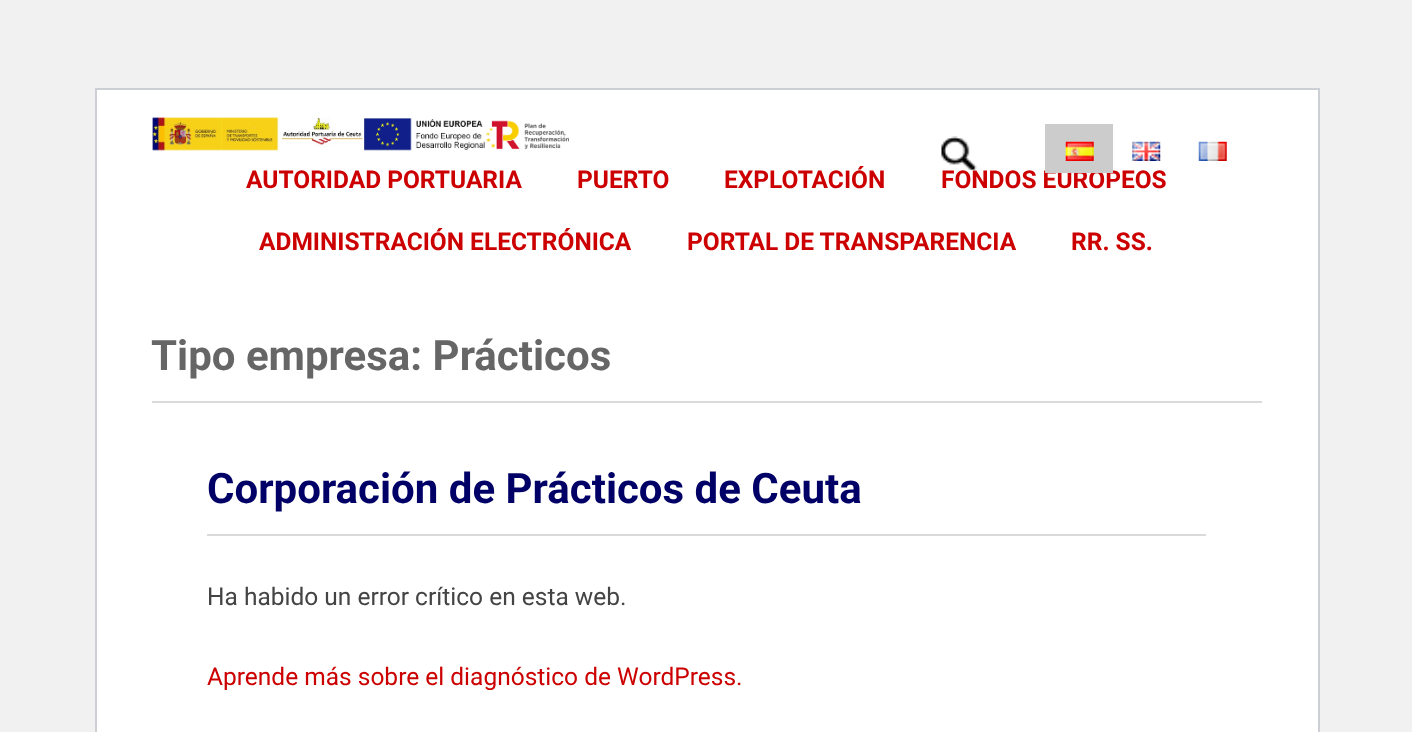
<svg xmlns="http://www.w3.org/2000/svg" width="1412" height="732">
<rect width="100%" height="100%" fill="#f1f1f1"/>
<rect x="96" y="89" width="1223" height="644" fill="#fff" stroke="#ccd0d4" stroke-width="2"/>
<image x="152" y="117" width="417" height="34" href="media/1.png"/>
<text x="941" y="188" style="font-family:Roboto;font-size:24.5px;font-weight:bold;fill:#c00">FONDOS EUROPEOS</text>
<image x="941" y="136" width="36" height="35" href="media/2.png"/>
<rect x="1045" y="124" width="68" height="49" fill="#ccc"/>
<image x="1065" y="141" width="29" height="20" href="media/3.png"/>
<image x="1132" y="141" width="29" height="20" href="media/4.png"/>
<image x="1198" y="141" width="29" height="20" href="media/5.png"/>
<text x="246" y="188" style="font-family:Roboto;font-size:24.5px;font-weight:bold;fill:#c00">AUTORIDAD PORTUARIA</text>
<text x="577" y="188" style="font-family:Roboto;font-size:24.5px;font-weight:bold;fill:#c00">PUERTO</text>
<text x="724" y="188" style="font-family:Roboto;font-size:24.5px;font-weight:bold;fill:#c00">EXPLOTACIÓN</text>
<text x="259" y="250" style="font-family:Roboto;font-size:24.5px;font-weight:bold;fill:#c00">ADMINISTRACIÓN ELECTRÓNICA</text>
<text x="687" y="250" style="font-family:Roboto;font-size:24.5px;font-weight:bold;fill:#c00">PORTAL DE TRANSPARENCIA</text>
<text x="1071" y="250" style="font-family:Roboto;font-size:24.5px;font-weight:bold;fill:#c00">RR. SS.</text>
<rect x="152" y="401" width="1110" height="2" fill="#dadada"/>
<text x="151" y="370" style="font-family:Roboto;font-size:42px;font-weight:bold;fill:#666">Tipo empresa: Prácticos</text>
<rect x="207" y="534" width="999" height="2" fill="#dadada"/>
<text x="207" y="503" style="font-family:Roboto;font-size:42px;font-weight:bold;fill:#006">Corporación de Prácticos de Ceuta</text>
<text x="207" y="605" style="font-family:Roboto;font-size:24.5px;fill:#444">Ha habido un error crítico en esta web.</text>
<text x="207" y="685" style="font-family:Roboto;font-size:24.5px;fill:#c00">Aprende más sobre el diagnóstico de WordPress.</text>
</svg>
